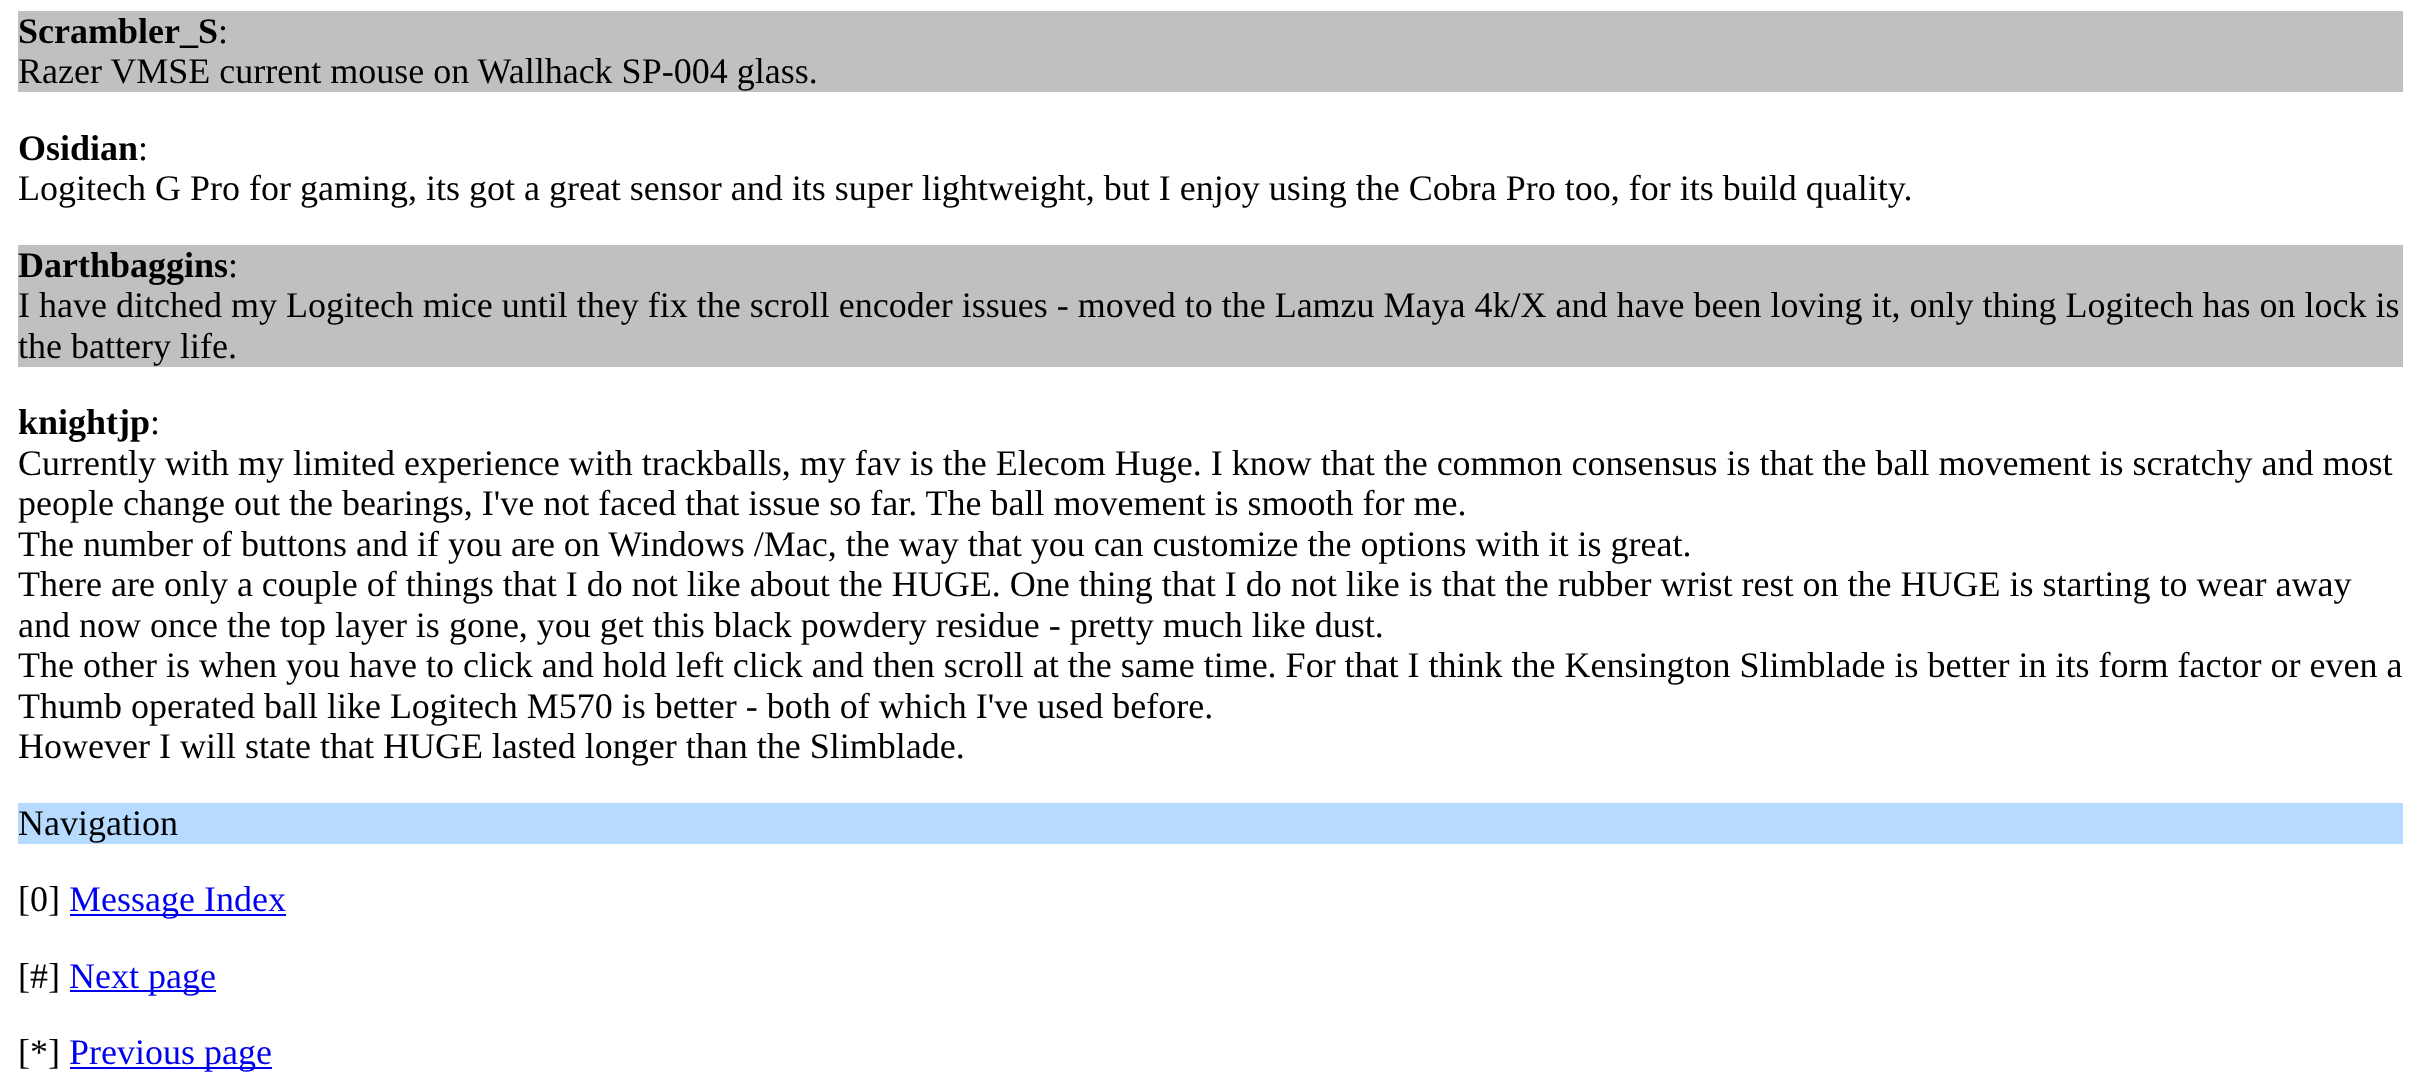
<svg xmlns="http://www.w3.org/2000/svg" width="2420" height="1072">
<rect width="100%" height="100%" fill="#fff"/>
<rect x="18" y="11" width="2385" height="81" fill="#c0c0c0"/>
<text x="18" y="43" style="font-family:Liberation Serif;font-size:36px;font-weight:bold;fill:#000">Scrambler_S</text>
<text x="218" y="43" style="font-family:Liberation Serif;font-size:36px;fill:#000">:</text>
<text x="18" y="83" style="font-family:Liberation Serif;font-size:36px;fill:#000">Razer VMSE current mouse on Wallhack SP-004 glass.</text>
<text x="18" y="160" style="font-family:Liberation Serif;font-size:36px;font-weight:bold;fill:#000">Osidian</text>
<text x="138" y="160" style="font-family:Liberation Serif;font-size:36px;fill:#000">:</text>
<text x="18" y="200" style="font-family:Liberation Serif;font-size:36px;fill:#000">Logitech G Pro for gaming, its got a great sensor and its super lightweight, but I enjoy using the Cobra Pro too, for its build quality.</text>
<rect x="18" y="245" width="2385" height="122" fill="#c0c0c0"/>
<text x="18" y="277" style="font-family:Liberation Serif;font-size:36px;font-weight:bold;fill:#000">Darthbaggins</text>
<text x="228" y="277" style="font-family:Liberation Serif;font-size:36px;fill:#000">:</text>
<text x="18" y="317" style="font-family:Liberation Serif;font-size:36px;fill:#000">I have ditched my Logitech mice until they fix the scroll encoder issues - moved to the Lamzu Maya 4k/X and have been loving it, only thing Logitech has on lock is</text>
<text x="18" y="358" style="font-family:Liberation Serif;font-size:36px;fill:#000">the battery life.</text>
<text x="18" y="434" style="font-family:Liberation Serif;font-size:36px;font-weight:bold;fill:#000">knightjp</text>
<text x="150" y="434" style="font-family:Liberation Serif;font-size:36px;fill:#000">:</text>
<text x="18" y="475" style="font-family:Liberation Serif;font-size:36px;fill:#000">Currently with my limited experience with trackballs, my fav is the Elecom Huge. I know that the common consensus is that the ball movement is scratchy and most</text>
<text x="18" y="515" style="font-family:Liberation Serif;font-size:36px;fill:#000">people change out the bearings, I've not faced that issue so far. The ball movement is smooth for me.</text>
<text x="18" y="556" style="font-family:Liberation Serif;font-size:36px;fill:#000">The number of buttons and if you are on Windows /Mac, the way that you can customize the options with it is great.</text>
<text x="18" y="596" style="font-family:Liberation Serif;font-size:36px;fill:#000">There are only a couple of things that I do not like about the HUGE. One thing that I do not like is that the rubber wrist rest on the HUGE is starting to wear away</text>
<text x="18" y="637" style="font-family:Liberation Serif;font-size:36px;fill:#000">and now once the top layer is gone, you get this black powdery residue - pretty much like dust.</text>
<text x="18" y="677" style="font-family:Liberation Serif;font-size:36px;fill:#000">The other is when you have to click and hold left click and then scroll at the same time. For that I think the Kensington Slimblade is better in its form factor or even a</text>
<text x="18" y="718" style="font-family:Liberation Serif;font-size:36px;fill:#000">Thumb operated ball like Logitech M570 is better - both of which I've used before.</text>
<text x="18" y="758" style="font-family:Liberation Serif;font-size:36px;fill:#000">However I will state that HUGE lasted longer than the Slimblade.</text>
<rect x="18" y="803" width="2385" height="41" fill="#b6dbff"/>
<text x="18" y="835" style="font-family:Liberation Serif;font-size:36px;fill:#000">Navigation</text>
<text x="18" y="911" style="font-family:Liberation Serif;font-size:36px;fill:#000">[0]</text>
<rect x="70" y="914" width="216" height="2" fill="#00e"/>
<text x="69" y="911" style="font-family:Liberation Serif;font-size:36px;fill:#00e">Message Index</text>
<text x="18" y="988" style="font-family:Liberation Serif;font-size:36px;fill:#000">[#]</text>
<rect x="70" y="990" width="146" height="2" fill="#00e"/>
<text x="69" y="988" style="font-family:Liberation Serif;font-size:36px;fill:#00e">Next page</text>
<text x="18" y="1064" style="font-family:Liberation Serif;font-size:36px;fill:#000">[*]</text>
<rect x="70" y="1067" width="202" height="2" fill="#00e"/>
<text x="69" y="1064" style="font-family:Liberation Serif;font-size:36px;fill:#00e">Previous page</text>
</svg>
